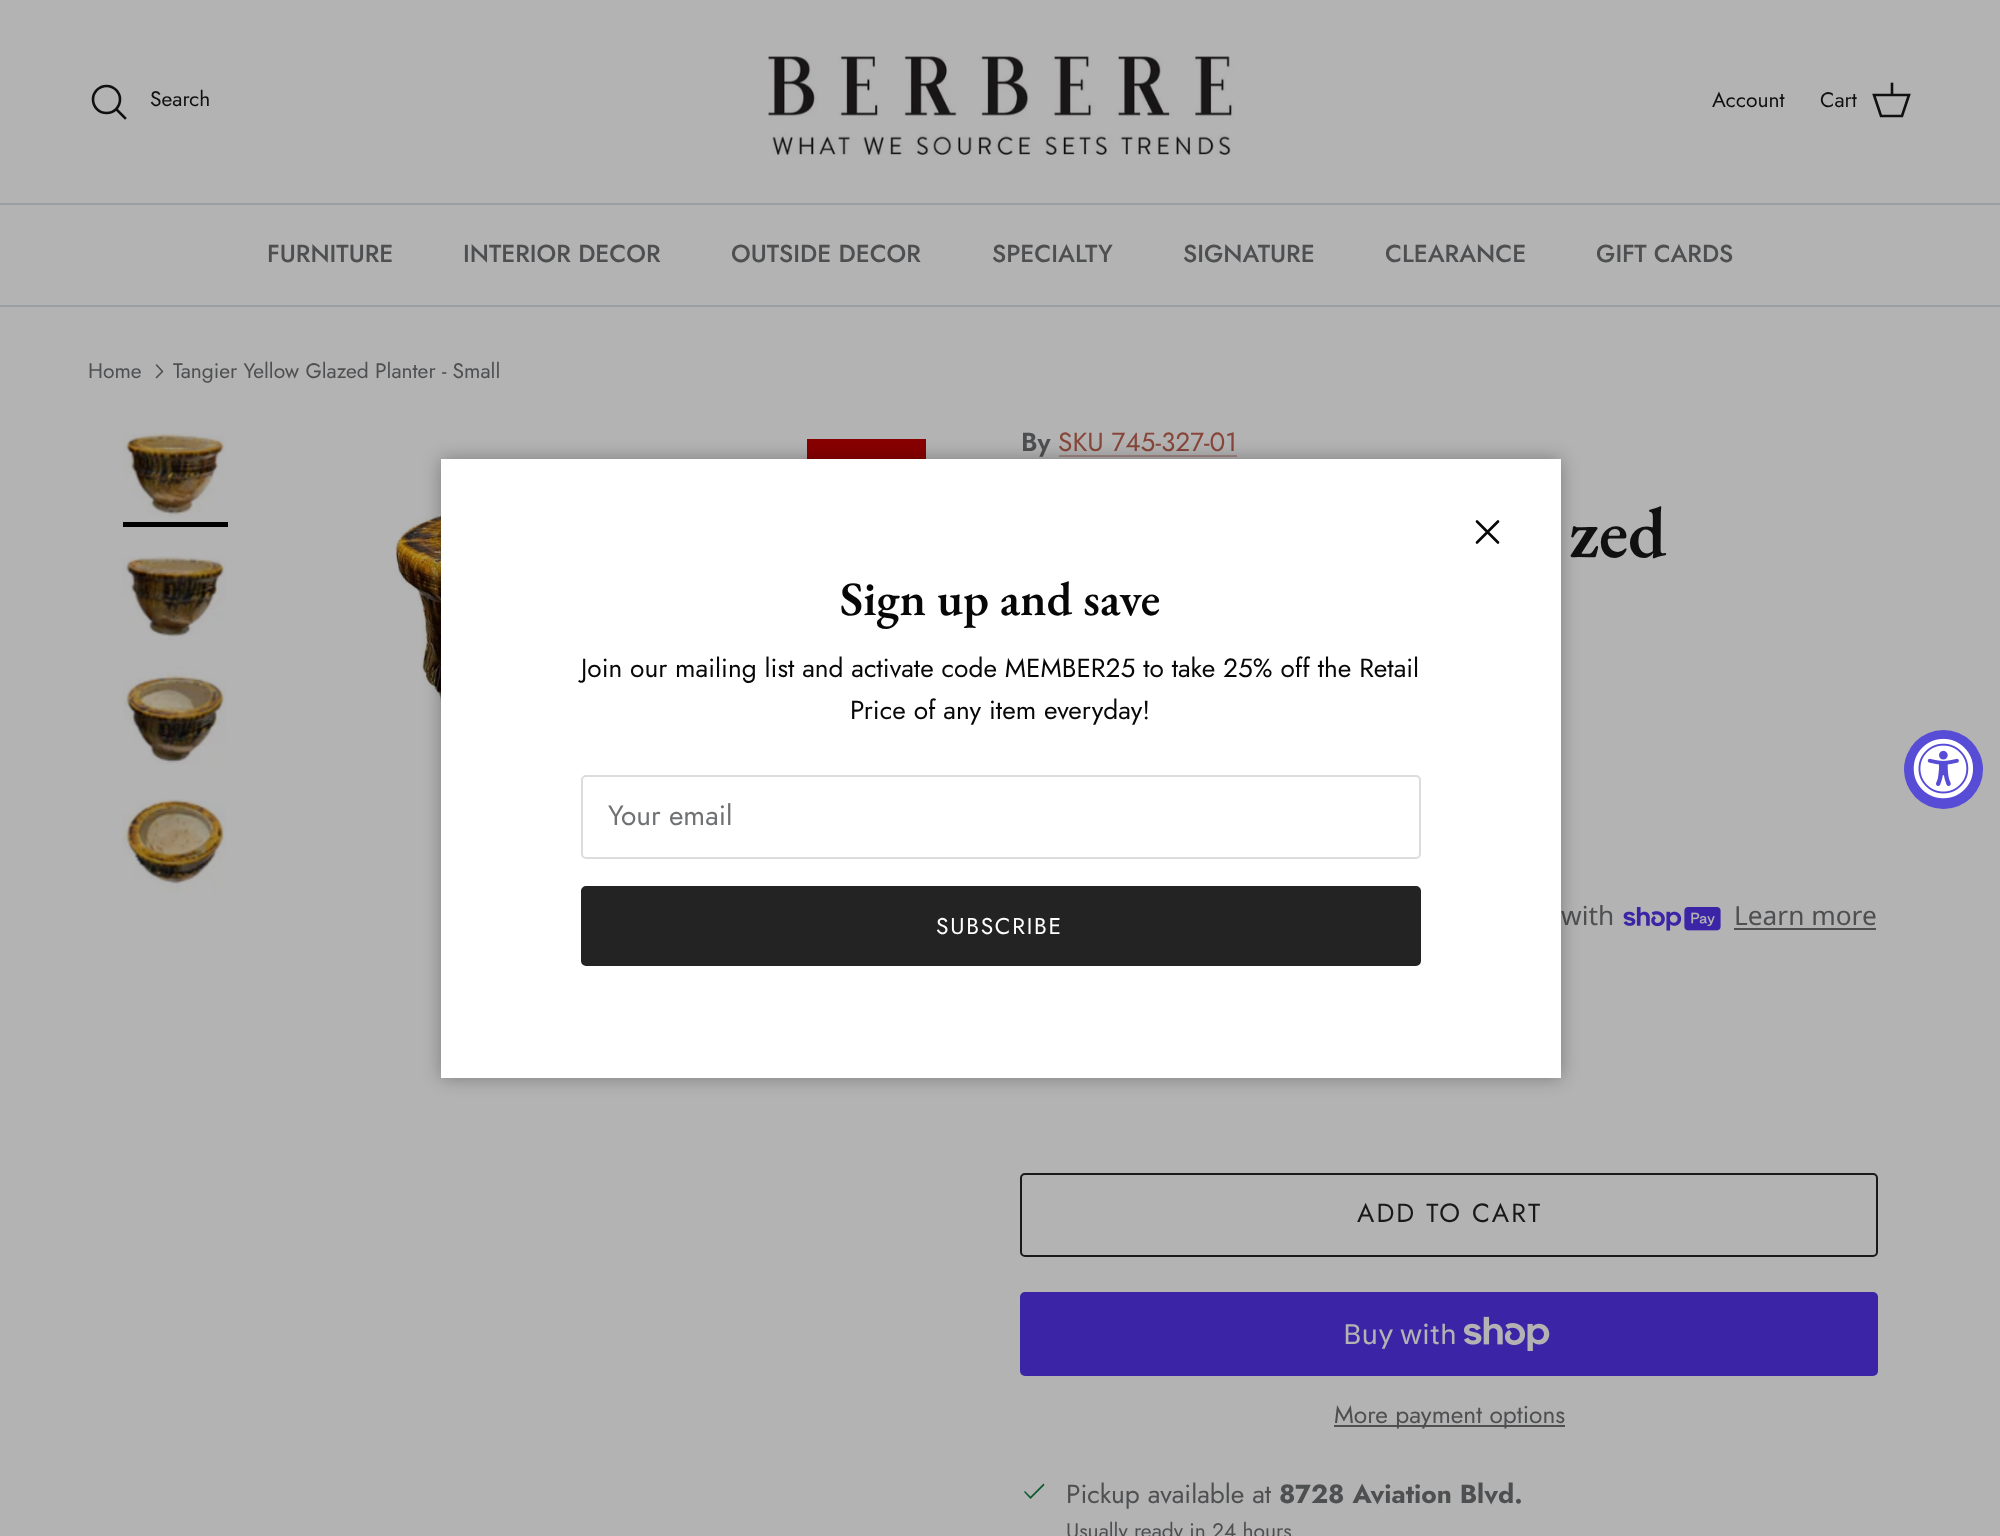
<svg xmlns="http://www.w3.org/2000/svg" width="2000" height="1536">
<rect width="100%" height="100%" fill="#b3b3b3"/>
<rect y="203" width="2000" height="2" fill="#9c9fa2"/>
<circle cx="106.5" cy="99.5" r="13.5" fill="none" stroke="#101010" stroke-width="2.6"/>
<text x="150" y="106" style="font-family:Jost;font-size:21px;fill:#101010">Search</text>
<path d="M117 110l8 8" fill="none" stroke="#101010" stroke-width="2.6" stroke-linecap="square"/>
<image x="768" y="56" width="466" height="99" href="media/1.png"/>
<text x="1712" y="107" style="font-family:Jost;font-size:21px;fill:#101010">Account</text>
<text x="1820" y="107" style="font-family:Jost;font-size:21px;fill:#101010">Cart</text>
<path d="M1874 95h35l-7 21h-21z" fill="none" stroke="#101010" stroke-width="2.6"/>
<path d="M1892 94.5v-10.5" fill="none" stroke="#101010" stroke-width="2.6" stroke-linecap="square"/>
<rect y="305" width="2000" height="2" fill="#9c9fa2"/>
<text x="267" y="262" style="font-family:Jost;font-size:24.5px;font-weight:500;fill:#4e4f51">FURNITURE</text>
<text x="463" y="262" style="font-family:Jost;font-size:24.5px;font-weight:500;fill:#4e4f51">INTERIOR DECOR</text>
<text x="731" y="262" style="font-family:Jost;font-size:24.5px;font-weight:500;fill:#4e4f51">OUTSIDE DECOR</text>
<text x="992" y="262" style="font-family:Jost;font-size:24.5px;font-weight:500;fill:#4e4f51">SPECIALTY</text>
<text x="1183" y="262" style="font-family:Jost;font-size:24.5px;font-weight:500;fill:#4e4f51">SIGNATURE</text>
<text x="1385" y="262" style="font-family:Jost;font-size:24.5px;font-weight:500;fill:#4e4f51">CLEARANCE</text>
<text x="1596" y="262" style="font-family:Jost;font-size:24.5px;font-weight:500;fill:#4e4f51">GIFT CARDS</text>
<text x="88" y="378" style="font-family:Jost;font-size:21px;fill:#4e4f51">Home</text>
<path d="M156.5 377.5l6-6l-6-6.5" fill="none" stroke="#4e4f51" stroke-width="1.6" stroke-linecap="round" stroke-linejoin="round"/>
<text x="173" y="378" style="font-family:Jost;font-size:21px;fill:#4e4f51">Tangier Yellow Glazed Planter - Small</text>
<image x="123" y="433" width="102" height="84" href="media/2.png"/>
<rect x="123" y="522" width="105" height="5" fill="#000"/>
<image x="122" y="556" width="104" height="84" href="media/3.png"/>
<image x="123" y="667" width="103" height="98" href="media/4.png"/>
<image x="122" y="799" width="104" height="94" href="media/5.png"/>
<rect x="807" y="439" width="119" height="20" fill="#800"/>
<image x="395" y="497" width="46" height="428" href="media/6.png"/>
<text x="1021" y="451" style="font-family:Jost;font-size:26.25px;font-weight:600;fill:#4e4f51">By</text>
<text x="1058" y="451" style="font-family:Jost;font-size:26.25px;fill:#874639">SKU 745-327-01</text>
<rect x="1059" y="455" width="178" height="2" fill="#a18782"/>
<text x="1569" y="557" style="font-family:EB Garamond;font-size:72px;font-weight:600;fill:#101010">zed</text>
<text x="1561" y="925" style="font-family:Noto Sans;font-size:26.25px;fill:#4e4f51">with</text>
<image x="1623" y="907" width="98" height="24" href="media/7.png"/>
<text x="1734" y="925" style="font-family:Noto Sans;font-size:26.25px;fill:#4e4f51">Learn more</text>
<rect x="1734" y="928" width="142" height="2" fill="#4e4f51"/>
<rect x="1021" y="1174" width="856" height="82" rx="4" fill="none" stroke="#191919" stroke-width="2"/>
<text x="1357" y="1222" style="font-family:Jost;font-size:26.25px;letter-spacing:2.1px;fill:#191919">ADD TO CART</text>
<rect x="1020" y="1292" width="858" height="84" rx="5" fill="#3b24a5"/>
<text x="1343" y="1344" style="font-family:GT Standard;font-size:28px;fill:#b3b3b3">Buy with</text>
<image x="1464" y="1316" width="86" height="35" href="media/8.png"/>
<rect x="1334" y="1425" width="231" height="2" fill="#4e4f51"/>
<text x="1334" y="1423" style="font-family:Jost;font-size:24.5px;fill:#4e4f51">More payment options</text>
<path d="M1043.5 1483.5l1 1.5l-14 14l-6.5-7l1-1l5.5 5.5z" fill="#0b5a2f"/>
<text x="1066" y="1503" style="font-family:Jost;font-size:26.25px;fill:#4e4f51">Pickup available at</text>
<text x="1279" y="1503" style="font-family:Jost;font-size:26.25px;font-weight:bold;fill:#4e4f51">8728 Aviation Blvd.</text>
<text x="1066" y="1538" style="font-family:Jost;font-size:21px;fill:#4e4f51">Usually ready in 24 hours</text>
<rect x="441" y="459" width="1120" height="619" fill="#0000004d" filter="blur(9px)"/>
<rect x="441" y="459" width="1120" height="619" fill="#fff"/>
<path d="M1498 521.5l-21 21m0-21l21 21" fill="none" stroke="#070707" stroke-width="2.6" stroke-linecap="round" stroke-linejoin="round"/>
<text x="840" y="615" style="font-family:EB Garamond;font-size:48px;font-weight:600;fill:#070707">Sign up and save</text>
<text x="581" y="677" style="font-family:Jost;font-size:26.25px;fill:#070707">Join our mailing list and activate code MEMBER25 to take 25% off the Retail</text>
<text x="850" y="719" style="font-family:Jost;font-size:26.25px;fill:#070707">Price of any item everyday!</text>
<rect x="582" y="776" width="838" height="82" rx="4" fill="none" stroke="#dbdcdc" stroke-width="2"/>
<text x="608" y="825" style="font-family:Jost;font-size:28px;fill:#707173">Your email</text>
<rect x="582" y="887" width="838" height="78" rx="4" fill="#232323" stroke="#232323" stroke-width="2"/>
<text x="936" y="934" style="font-family:Jost;font-size:22.75px;letter-spacing:1.75px;fill:#fff">SUBSCRIBE</text>
<circle cx="1943.5" cy="769.5" r="39.5" fill="#574cd5"/>
<image x="1913" y="738" width="61" height="61" href="media/9.png"/>
</svg>
